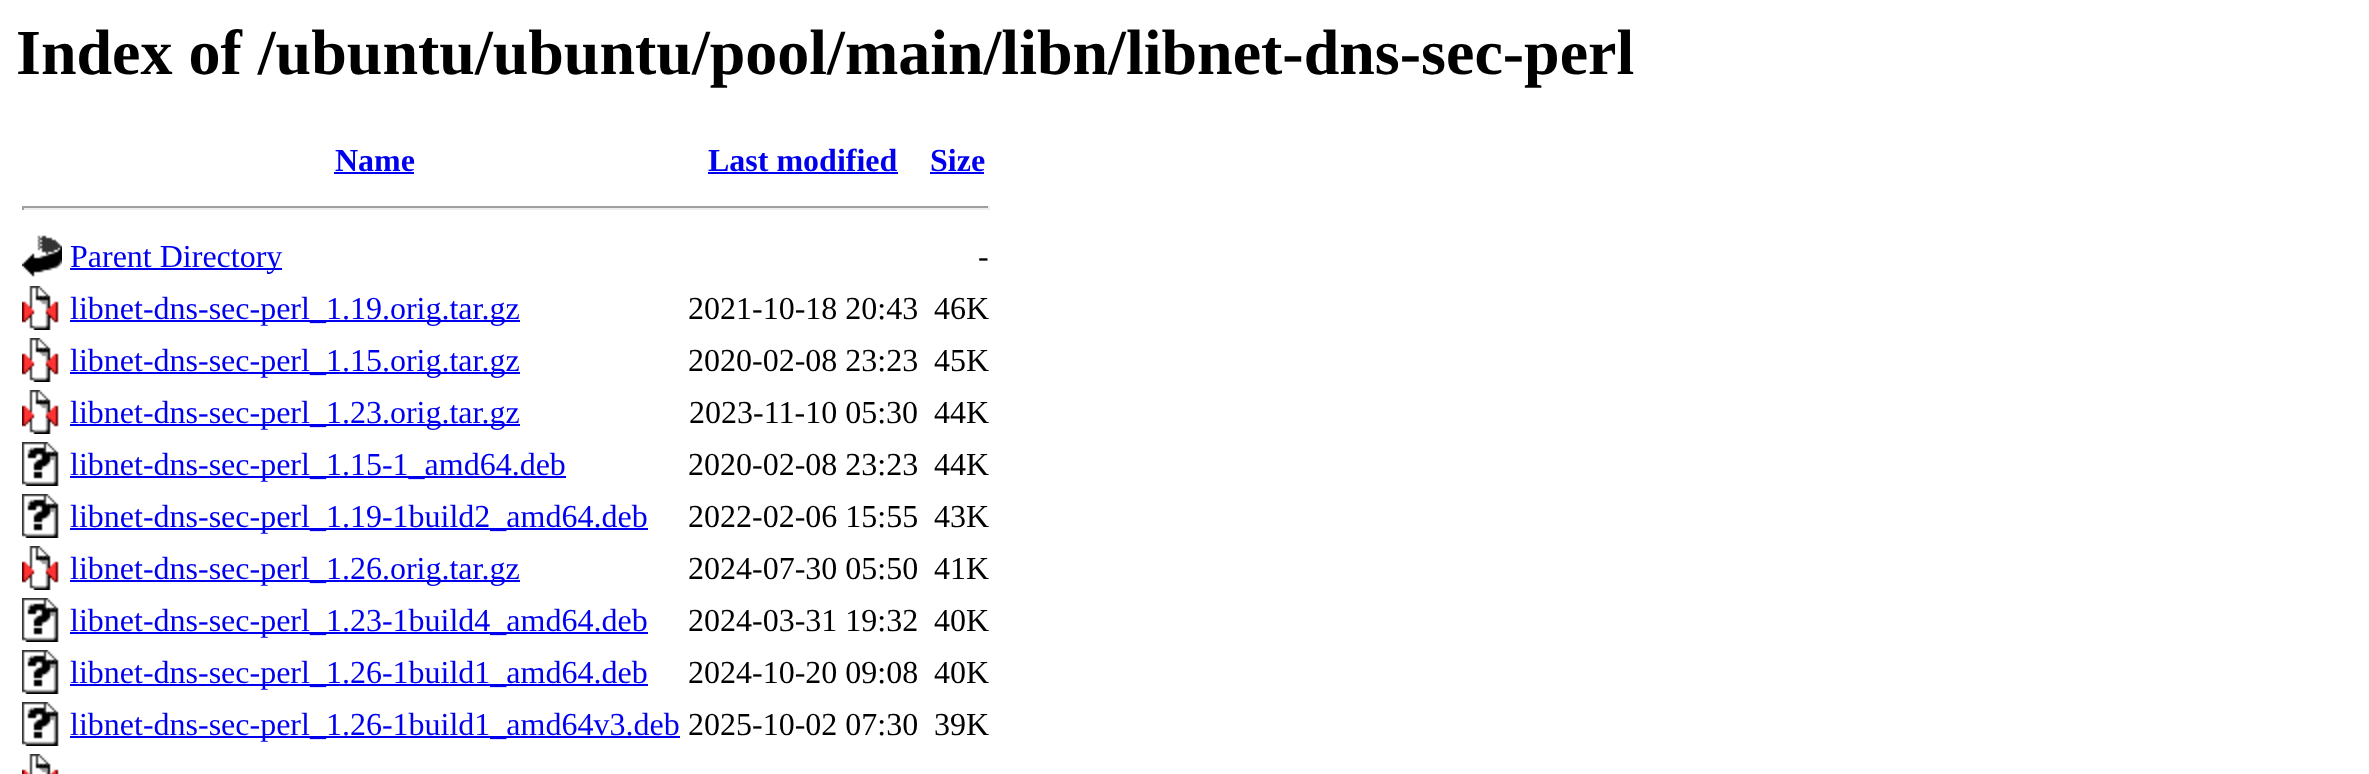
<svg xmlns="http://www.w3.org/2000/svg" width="2369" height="774">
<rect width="100%" height="100%" fill="#fff"/>
<text x="16" y="74" style="font-family:Liberation Serif;font-size:64px;font-weight:bold;fill:#000">Index of /ubuntu/ubuntu/pool/main/libn/libnet-dns-sec-perl</text>
<text x="335" y="171" style="font-family:Liberation Serif;font-size:32px;font-weight:bold;fill:#00e">Name</text>
<rect x="334" y="172" width="80" height="2" fill="#00e"/>
<text x="708" y="171" style="font-family:Liberation Serif;font-size:32px;font-weight:bold;fill:#00e">Last modified</text>
<rect x="708" y="172" width="190" height="2" fill="#00e"/>
<text x="930" y="171" style="font-family:Liberation Serif;font-size:32px;font-weight:bold;fill:#00e">Size</text>
<rect x="930" y="172" width="54" height="2" fill="#00e"/>
<rect x="22" y="206" width="968" height="2" fill="#9f9f9f"/>
<rect x="988" y="206" width="2" height="4" fill="#eee"/>
<rect x="22" y="208" width="968" height="2" fill="#eee"/>
<rect x="22" y="206" width="2" height="4" fill="#9f9f9f"/>
<image x="22" y="235" width="40" height="42" href="media/1.png"/>
<rect x="70" y="268" width="212" height="2" fill="#00e"/>
<text x="70" y="267" style="font-family:Liberation Serif;font-size:32px;fill:#00e">Parent Directory</text>
<text x="978" y="267" style="font-family:Liberation Serif;font-size:32px;fill:#000">-</text>
<image x="22" y="286" width="37" height="44" href="media/2.png"/>
<rect x="70" y="320" width="450" height="2" fill="#00e"/>
<text x="70" y="319" style="font-family:Liberation Serif;font-size:32px;fill:#00e">libnet-dns-sec-perl_1.19.orig.tar.gz</text>
<text x="688" y="319" style="font-family:Liberation Serif;font-size:32px;fill:#000">2021-10-18 20:43</text>
<text x="934" y="319" style="font-family:Liberation Serif;font-size:32px;fill:#000">46K</text>
<image x="22" y="338" width="37" height="44" href="media/2.png"/>
<rect x="70" y="372" width="450" height="2" fill="#00e"/>
<text x="70" y="371" style="font-family:Liberation Serif;font-size:32px;fill:#00e">libnet-dns-sec-perl_1.15.orig.tar.gz</text>
<text x="688" y="371" style="font-family:Liberation Serif;font-size:32px;fill:#000">2020-02-08 23:23</text>
<text x="934" y="371" style="font-family:Liberation Serif;font-size:32px;fill:#000">45K</text>
<image x="22" y="390" width="37" height="44" href="media/2.png"/>
<rect x="70" y="424" width="450" height="2" fill="#00e"/>
<text x="70" y="423" style="font-family:Liberation Serif;font-size:32px;fill:#00e">libnet-dns-sec-perl_1.23.orig.tar.gz</text>
<text x="689" y="423" style="font-family:Liberation Serif;font-size:32px;fill:#000">2023-11-10 05:30</text>
<text x="934" y="423" style="font-family:Liberation Serif;font-size:32px;fill:#000">44K</text>
<image x="22" y="442" width="37" height="44" href="media/3.png"/>
<rect x="70" y="476" width="496" height="2" fill="#00e"/>
<text x="70" y="475" style="font-family:Liberation Serif;font-size:32px;fill:#00e">libnet-dns-sec-perl_1.15-1_amd64.deb</text>
<text x="688" y="475" style="font-family:Liberation Serif;font-size:32px;fill:#000">2020-02-08 23:23</text>
<text x="934" y="475" style="font-family:Liberation Serif;font-size:32px;fill:#000">44K</text>
<image x="22" y="494" width="37" height="44" href="media/3.png"/>
<rect x="70" y="528" width="578" height="2" fill="#00e"/>
<text x="70" y="527" style="font-family:Liberation Serif;font-size:32px;fill:#00e">libnet-dns-sec-perl_1.19-1build2_amd64.deb</text>
<text x="688" y="527" style="font-family:Liberation Serif;font-size:32px;fill:#000">2022-02-06 15:55</text>
<text x="934" y="527" style="font-family:Liberation Serif;font-size:32px;fill:#000">43K</text>
<image x="22" y="546" width="37" height="44" href="media/2.png"/>
<rect x="70" y="580" width="450" height="2" fill="#00e"/>
<text x="70" y="579" style="font-family:Liberation Serif;font-size:32px;fill:#00e">libnet-dns-sec-perl_1.26.orig.tar.gz</text>
<text x="688" y="579" style="font-family:Liberation Serif;font-size:32px;fill:#000">2024-07-30 05:50</text>
<text x="934" y="579" style="font-family:Liberation Serif;font-size:32px;fill:#000">41K</text>
<image x="22" y="598" width="37" height="44" href="media/3.png"/>
<rect x="70" y="632" width="578" height="2" fill="#00e"/>
<text x="70" y="631" style="font-family:Liberation Serif;font-size:32px;fill:#00e">libnet-dns-sec-perl_1.23-1build4_amd64.deb</text>
<text x="688" y="631" style="font-family:Liberation Serif;font-size:32px;fill:#000">2024-03-31 19:32</text>
<text x="934" y="631" style="font-family:Liberation Serif;font-size:32px;fill:#000">40K</text>
<image x="22" y="650" width="37" height="44" href="media/3.png"/>
<rect x="70" y="684" width="578" height="2" fill="#00e"/>
<text x="70" y="683" style="font-family:Liberation Serif;font-size:32px;fill:#00e">libnet-dns-sec-perl_1.26-1build1_amd64.deb</text>
<text x="688" y="683" style="font-family:Liberation Serif;font-size:32px;fill:#000">2024-10-20 09:08</text>
<text x="934" y="683" style="font-family:Liberation Serif;font-size:32px;fill:#000">40K</text>
<image x="22" y="702" width="37" height="44" href="media/3.png"/>
<rect x="70" y="736" width="610" height="2" fill="#00e"/>
<text x="70" y="735" style="font-family:Liberation Serif;font-size:32px;fill:#00e">libnet-dns-sec-perl_1.26-1build1_amd64v3.deb</text>
<text x="688" y="735" style="font-family:Liberation Serif;font-size:32px;fill:#000">2025-10-02 07:30</text>
<text x="934" y="735" style="font-family:Liberation Serif;font-size:32px;fill:#000">39K</text>
<image x="22" y="754" width="37" height="20" href="media/4.png"/>
</svg>
